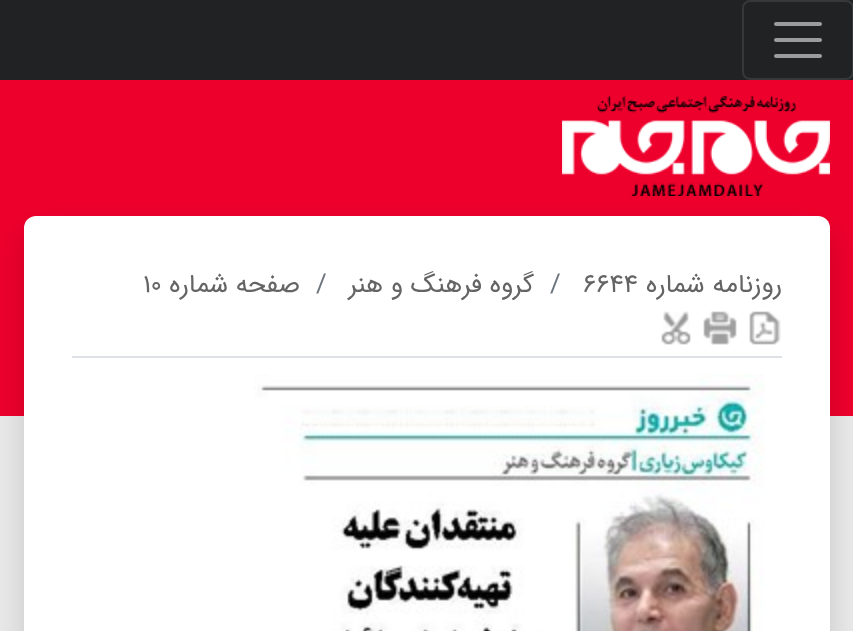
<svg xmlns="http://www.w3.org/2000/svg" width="853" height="631">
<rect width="100%" height="100%" fill="#eaeaea"/>
<rect width="853" height="80" fill="#212224"/>
<rect x="743" y="1" width="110" height="78" rx="7" fill="none" stroke="#37383a" stroke-width="2"/>
<path d="M776 24h44m-44 16h44m-44 16h44" fill="none" stroke="#9b9c9c" stroke-width="4" stroke-linecap="round"/>
<rect y="80" width="853" height="336" fill="#ee002d"/>
<image x="562" y="96" width="268" height="100" href="media/1.png"/>
<rect x="24" y="232" width="806" height="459" rx="12" fill="#00000026" filter="blur(16px)"/>
<rect x="24" y="216" width="806" height="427" rx="12" fill="#fff"/>
<rect x="72" y="356" width="710" height="2" fill="#dee2e6"/>
<text x="782" y="292" style="font-family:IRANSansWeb;font-size:26px;direction:rtl;fill:#646464">روزنامه شماره</text>
<text x="583" y="292" style="font-family:IRANSansWeb;font-size:26px;fill:#646464">۶۶۴۴</text>
<text x="550" y="292" style="font-family:IRANSansWeb;font-size:26px;fill:#6c757d">/</text>
<text x="534" y="292" style="font-family:IRANSansWeb;font-size:26px;direction:rtl;fill:#646464">گروه فرهنگ و هنر</text>
<text x="316" y="292" style="font-family:IRANSansWeb;font-size:26px;fill:#6c757d">/</text>
<text x="300" y="292" style="font-family:IRANSansWeb;font-size:26px;direction:rtl;fill:#646464">صفحه شماره</text>
<text x="143" y="292" style="font-family:IRANSansWeb;font-size:26px;fill:#646464">۱۰</text>
<image x="749" y="311" width="32" height="34" href="media/2.png"/>
<image x="703" y="311" width="34" height="34" href="media/3.png"/>
<image x="661" y="311" width="30" height="34" href="media/4.png"/>
<image x="254" y="374" width="511" height="257" href="media/5.png"/>
</svg>
